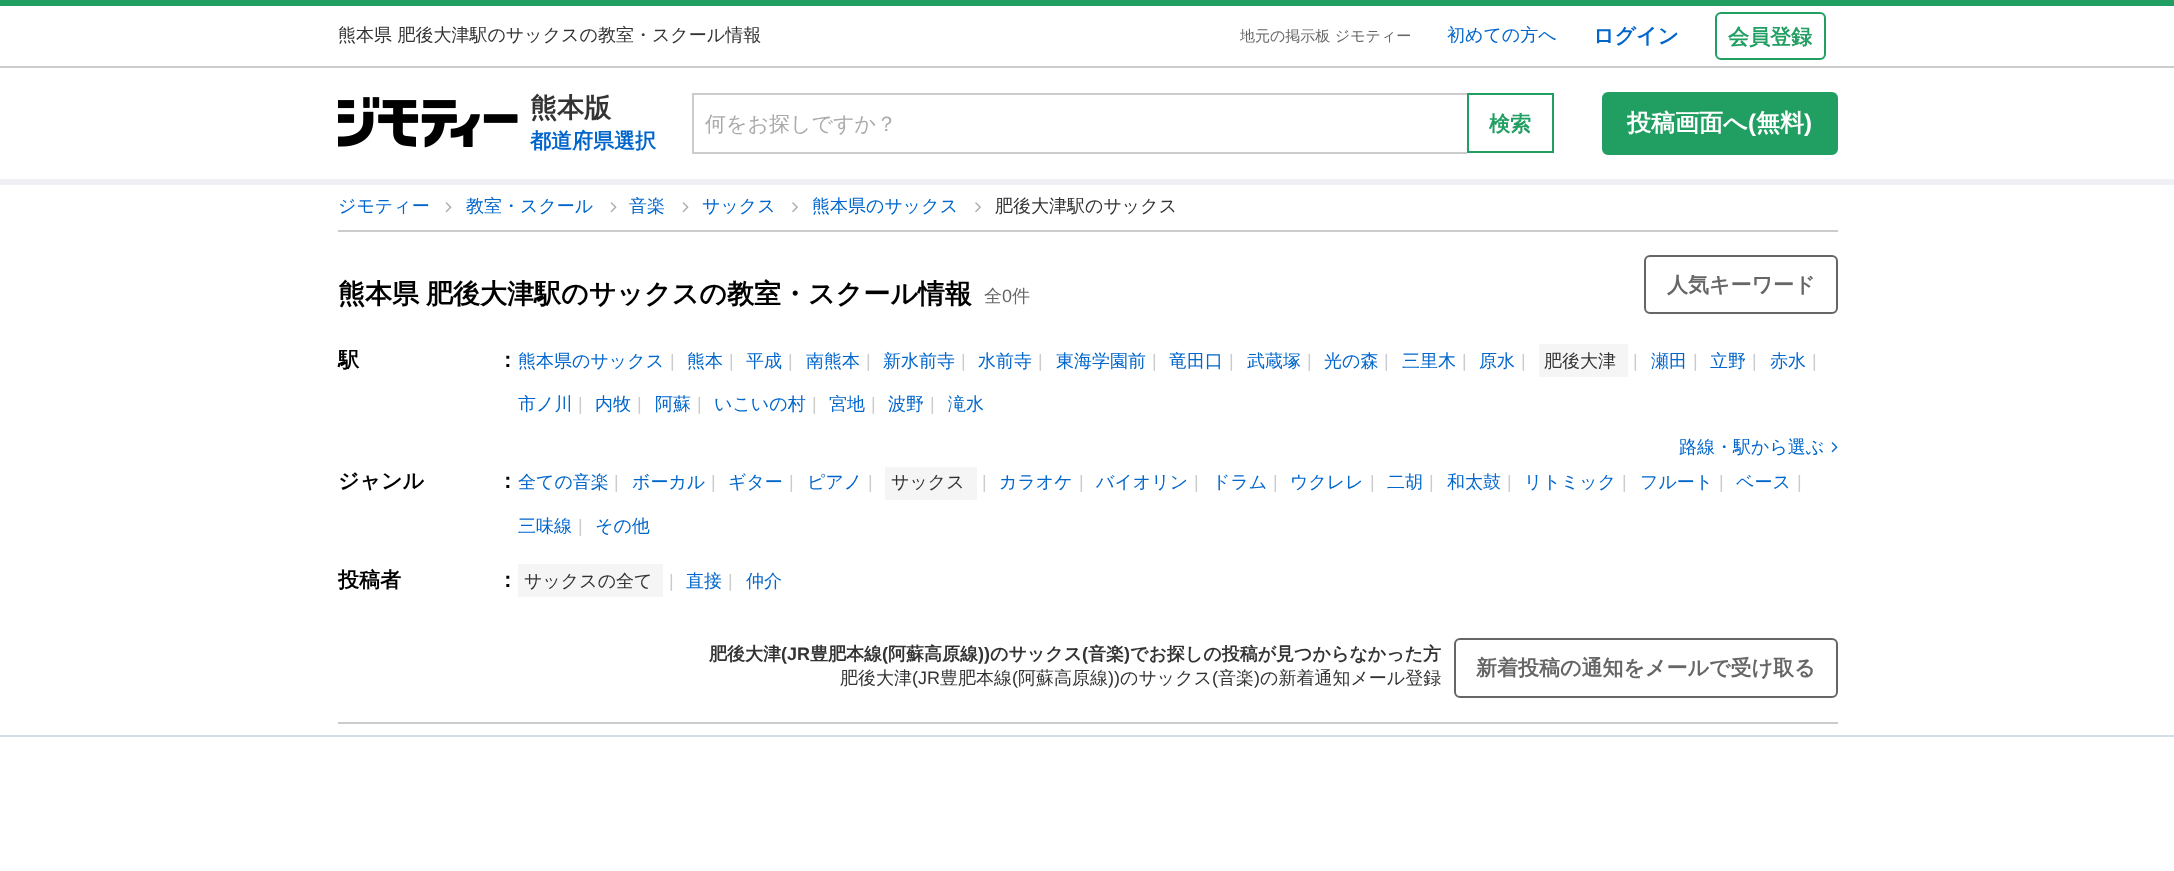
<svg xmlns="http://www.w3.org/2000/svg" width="2174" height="871">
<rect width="100%" height="100%" fill="#fff"/>
<rect width="2174" height="6" fill="#219e62"/>
<rect y="66" width="2174" height="2" fill="#ccc"/>
<text x="338" y="41" style="font-family:WenQuanYi Zen Hei;font-size:18px;font-weight:500;fill:#333">熊本県 肥後大津駅のサックスの教室・スクール情報</text>
<text x="1240" y="41" style="font-family:WenQuanYi Zen Hei;font-size:15px;font-weight:500;fill:#666">地元の掲示板 ジモティー</text>
<text x="1447" y="41" style="font-family:WenQuanYi Zen Hei;font-size:18px;font-weight:500;fill:#06c">初めての方へ</text>
<text x="1593" y="43" style="font-family:WenQuanYi Zen Hei;font-size:21px;font-weight:bold;fill:#06c">ログイン</text>
<rect x="1716" y="13" width="109" height="46" rx="5" fill="none" stroke="#219e62" stroke-width="2"/>
<text x="1728" y="44" style="font-family:WenQuanYi Zen Hei;font-size:21px;font-weight:bold;fill:#219e62">会員登録</text>
<image x="338" y="97" width="180" height="51" href="media/1.png"/>
<text x="530" y="117" style="font-family:WenQuanYi Zen Hei;font-size:27px;font-weight:bold;fill:#333">熊本版</text>
<text x="530" y="148" style="font-family:WenQuanYi Zen Hei;font-size:21px;font-weight:bold;fill:#06c">都道府県選択</text>
<rect x="692" y="93" width="775" height="2" fill="#ccc"/>
<rect x="692" y="152" width="775" height="2" fill="#ccc"/>
<rect x="692" y="93" width="2" height="60" fill="#ccc"/>
<text x="705" y="131" style="font-family:WenQuanYi Zen Hei;font-size:21px;font-weight:500;fill:#aaa">何をお探しですか？</text>
<rect x="1468" y="94" width="85" height="58" fill="none" stroke="#219e62" stroke-width="2"/>
<text x="1489" y="131" style="font-family:WenQuanYi Zen Hei;font-size:21px;font-weight:bold;fill:#219e62">検索</text>
<rect x="1603" y="93" width="234" height="61" rx="5" fill="#219e62" stroke="#219e62" stroke-width="2"/>
<text x="1627" y="131" style="font-family:WenQuanYi Zen Hei;font-size:24px;font-weight:bold;fill:#fff">投稿画面へ</text>
<text x="1748" y="131" style="font-family:Liberation Sans;font-size:24px;font-weight:bold;fill:#fff">(</text>
<text x="1756" y="131" style="font-family:WenQuanYi Zen Hei;font-size:24px;font-weight:bold;fill:#fff">無料</text>
<text x="1804" y="131" style="font-family:Liberation Sans;font-size:24px;font-weight:bold;fill:#fff">)</text>
<rect y="179" width="2174" height="6" fill="#f0eff5"/>
<rect x="338" y="230" width="1500" height="2" fill="#ccc"/>
<text x="338" y="212" style="font-family:WenQuanYi Zen Hei;font-size:18px;font-weight:500;fill:#06c">ジモティー</text>
<image x="445" y="202" width="7" height="11" href="media/2.png"/>
<text x="466" y="212" style="font-family:WenQuanYi Zen Hei;font-size:18px;font-weight:500;fill:#06c">教室・スクール</text>
<image x="610" y="202" width="7" height="11" href="media/2.png"/>
<text x="629" y="212" style="font-family:WenQuanYi Zen Hei;font-size:18px;font-weight:500;fill:#06c">音楽</text>
<image x="682" y="202" width="7" height="11" href="media/2.png"/>
<text x="702" y="212" style="font-family:WenQuanYi Zen Hei;font-size:18px;font-weight:500;fill:#06c">サックス</text>
<image x="792" y="202" width="6" height="11" href="media/3.png"/>
<text x="812" y="212" style="font-family:WenQuanYi Zen Hei;font-size:18px;font-weight:500;fill:#06c">熊本県のサックス</text>
<image x="975" y="202" width="6" height="11" href="media/3.png"/>
<text x="995" y="212" style="font-family:WenQuanYi Zen Hei;font-size:18px;font-weight:500;fill:#333">肥後大津駅のサックス</text>
<text x="338" y="303" word-spacing="-1" style="font-family:WenQuanYi Zen Hei;font-size:27px;font-weight:bold;fill:#000">熊本県 肥後大津駅のサックスの教室・スクール情報</text>
<text x="984" y="302" style="font-family:WenQuanYi Zen Hei;font-size:18px;font-weight:500;fill:#666">全</text>
<text x="1002" y="302" style="font-family:Liberation Sans;font-size:18px;fill:#666">0</text>
<text x="1012" y="302" style="font-family:WenQuanYi Zen Hei;font-size:18px;font-weight:500;fill:#666">件</text>
<rect x="1645" y="256" width="192" height="57" rx="5" fill="none" stroke="#666" stroke-width="2"/>
<text x="1667" y="292" style="font-family:WenQuanYi Zen Hei;font-size:21px;font-weight:bold;fill:#666">人気キーワード</text>
<text x="338" y="367" style="font-family:WenQuanYi Zen Hei;font-size:21px;font-weight:bold;fill:#000">駅</text>
<text x="497" y="367" style="font-family:WenQuanYi Zen Hei;font-size:21px;font-weight:bold;fill:#000">：</text>
<text x="518" y="367" style="font-family:WenQuanYi Zen Hei;font-size:18px;font-weight:500;fill:#06c">熊本県のサックス</text>
<text x="670" y="367" style="font-family:Liberation Sans;font-size:18px;fill:#ccc">|</text>
<text x="687" y="367" style="font-family:WenQuanYi Zen Hei;font-size:18px;font-weight:500;fill:#06c">熊本</text>
<text x="729" y="367" style="font-family:Liberation Sans;font-size:18px;fill:#ccc">|</text>
<text x="746" y="367" style="font-family:WenQuanYi Zen Hei;font-size:18px;font-weight:500;fill:#06c">平成</text>
<text x="788" y="367" style="font-family:Liberation Sans;font-size:18px;fill:#ccc">|</text>
<text x="806" y="367" style="font-family:WenQuanYi Zen Hei;font-size:18px;font-weight:500;fill:#06c">南熊本</text>
<text x="866" y="367" style="font-family:Liberation Sans;font-size:18px;fill:#ccc">|</text>
<text x="883" y="367" style="font-family:WenQuanYi Zen Hei;font-size:18px;font-weight:500;fill:#06c">新水前寺</text>
<text x="961" y="367" style="font-family:Liberation Sans;font-size:18px;fill:#ccc">|</text>
<text x="978" y="367" style="font-family:WenQuanYi Zen Hei;font-size:18px;font-weight:500;fill:#06c">水前寺</text>
<text x="1038" y="367" style="font-family:Liberation Sans;font-size:18px;fill:#ccc">|</text>
<text x="1056" y="367" style="font-family:WenQuanYi Zen Hei;font-size:18px;font-weight:500;fill:#06c">東海学園前</text>
<text x="1152" y="367" style="font-family:Liberation Sans;font-size:18px;fill:#ccc">|</text>
<text x="1169" y="367" style="font-family:WenQuanYi Zen Hei;font-size:18px;font-weight:500;fill:#06c">竜田口</text>
<text x="1229" y="367" style="font-family:Liberation Sans;font-size:18px;fill:#ccc">|</text>
<text x="1247" y="367" style="font-family:WenQuanYi Zen Hei;font-size:18px;font-weight:500;fill:#06c">武蔵塚</text>
<text x="1307" y="367" style="font-family:Liberation Sans;font-size:18px;fill:#ccc">|</text>
<text x="1324" y="367" style="font-family:WenQuanYi Zen Hei;font-size:18px;font-weight:500;fill:#06c">光の森</text>
<text x="1384" y="367" style="font-family:Liberation Sans;font-size:18px;fill:#ccc">|</text>
<text x="1402" y="367" style="font-family:WenQuanYi Zen Hei;font-size:18px;font-weight:500;fill:#06c">三里木</text>
<text x="1462" y="367" style="font-family:Liberation Sans;font-size:18px;fill:#ccc">|</text>
<text x="1479" y="367" style="font-family:WenQuanYi Zen Hei;font-size:18px;font-weight:500;fill:#06c">原水</text>
<text x="1521" y="367" style="font-family:Liberation Sans;font-size:18px;fill:#ccc">|</text>
<rect x="1539" y="344" width="89" height="33" fill="#f5f5f5"/>
<text x="1544" y="367" style="font-family:WenQuanYi Zen Hei;font-size:18px;font-weight:500;fill:#333">肥後大津</text>
<text x="1633" y="367" style="font-family:Liberation Sans;font-size:18px;fill:#ccc">|</text>
<text x="1651" y="367" style="font-family:WenQuanYi Zen Hei;font-size:18px;font-weight:500;fill:#06c">瀬田</text>
<text x="1693" y="367" style="font-family:Liberation Sans;font-size:18px;fill:#ccc">|</text>
<text x="1710" y="367" style="font-family:WenQuanYi Zen Hei;font-size:18px;font-weight:500;fill:#06c">立野</text>
<text x="1752" y="367" style="font-family:Liberation Sans;font-size:18px;fill:#ccc">|</text>
<text x="1770" y="367" style="font-family:WenQuanYi Zen Hei;font-size:18px;font-weight:500;fill:#06c">赤水</text>
<text x="1812" y="367" style="font-family:Liberation Sans;font-size:18px;fill:#ccc">|</text>
<text x="518" y="410" style="font-family:WenQuanYi Zen Hei;font-size:18px;font-weight:500;fill:#06c">市ノ川</text>
<text x="578" y="410" style="font-family:Liberation Sans;font-size:18px;fill:#ccc">|</text>
<text x="595" y="410" style="font-family:WenQuanYi Zen Hei;font-size:18px;font-weight:500;fill:#06c">内牧</text>
<text x="637" y="410" style="font-family:Liberation Sans;font-size:18px;fill:#ccc">|</text>
<text x="655" y="410" style="font-family:WenQuanYi Zen Hei;font-size:18px;font-weight:500;fill:#06c">阿蘇</text>
<text x="697" y="410" style="font-family:Liberation Sans;font-size:18px;fill:#ccc">|</text>
<text x="714" y="410" style="font-family:WenQuanYi Zen Hei;font-size:18px;font-weight:500;fill:#06c">いこいの村</text>
<text x="812" y="410" style="font-family:Liberation Sans;font-size:18px;fill:#ccc">|</text>
<text x="829" y="410" style="font-family:WenQuanYi Zen Hei;font-size:18px;font-weight:500;fill:#06c">宮地</text>
<text x="871" y="410" style="font-family:Liberation Sans;font-size:18px;fill:#ccc">|</text>
<text x="888" y="410" style="font-family:WenQuanYi Zen Hei;font-size:18px;font-weight:500;fill:#06c">波野</text>
<text x="930" y="410" style="font-family:Liberation Sans;font-size:18px;fill:#ccc">|</text>
<text x="948" y="410" style="font-family:WenQuanYi Zen Hei;font-size:18px;font-weight:500;fill:#06c">滝水</text>
<text x="1679" y="453" style="font-family:WenQuanYi Zen Hei;font-size:18px;font-weight:500;fill:#06c">路線・駅から選ぶ</text>
<image x="1831" y="442" width="7" height="11" href="media/4.png"/>
<text x="338" y="488" style="font-family:WenQuanYi Zen Hei;font-size:21px;font-weight:bold;fill:#000">ジャンル</text>
<text x="497" y="488" style="font-family:WenQuanYi Zen Hei;font-size:21px;font-weight:bold;fill:#000">：</text>
<text x="518" y="488" style="font-family:WenQuanYi Zen Hei;font-size:18px;font-weight:500;fill:#06c">全ての音楽</text>
<text x="614" y="488" style="font-family:Liberation Sans;font-size:18px;fill:#ccc">|</text>
<text x="632" y="488" style="font-family:WenQuanYi Zen Hei;font-size:18px;font-weight:500;fill:#06c">ボーカル</text>
<text x="711" y="488" style="font-family:Liberation Sans;font-size:18px;fill:#ccc">|</text>
<text x="728" y="488" style="font-family:WenQuanYi Zen Hei;font-size:18px;font-weight:500;fill:#06c">ギター</text>
<text x="789" y="488" style="font-family:Liberation Sans;font-size:18px;fill:#ccc">|</text>
<text x="807" y="488" style="font-family:WenQuanYi Zen Hei;font-size:18px;font-weight:500;fill:#06c">ピアノ</text>
<text x="868" y="488" style="font-family:Liberation Sans;font-size:18px;fill:#ccc">|</text>
<rect x="885" y="467" width="92" height="33" fill="#f5f5f5"/>
<text x="891" y="488" style="font-family:WenQuanYi Zen Hei;font-size:18px;font-weight:500;fill:#333">サックス</text>
<text x="982" y="488" style="font-family:Liberation Sans;font-size:18px;fill:#ccc">|</text>
<text x="999" y="488" style="font-family:WenQuanYi Zen Hei;font-size:18px;font-weight:500;fill:#06c">カラオケ</text>
<text x="1079" y="488" style="font-family:Liberation Sans;font-size:18px;fill:#ccc">|</text>
<text x="1096" y="488" style="font-family:WenQuanYi Zen Hei;font-size:18px;font-weight:500;fill:#06c">バイオリン</text>
<text x="1194" y="488" style="font-family:Liberation Sans;font-size:18px;fill:#ccc">|</text>
<text x="1212" y="488" style="font-family:WenQuanYi Zen Hei;font-size:18px;font-weight:500;fill:#06c">ドラム</text>
<text x="1273" y="488" style="font-family:Liberation Sans;font-size:18px;fill:#ccc">|</text>
<text x="1290" y="488" style="font-family:WenQuanYi Zen Hei;font-size:18px;font-weight:500;fill:#06c">ウクレレ</text>
<text x="1370" y="488" style="font-family:Liberation Sans;font-size:18px;fill:#ccc">|</text>
<text x="1387" y="488" style="font-family:WenQuanYi Zen Hei;font-size:18px;font-weight:500;fill:#06c">二胡</text>
<text x="1429" y="488" style="font-family:Liberation Sans;font-size:18px;fill:#ccc">|</text>
<text x="1447" y="488" style="font-family:WenQuanYi Zen Hei;font-size:18px;font-weight:500;fill:#06c">和太鼓</text>
<text x="1507" y="488" style="font-family:Liberation Sans;font-size:18px;fill:#ccc">|</text>
<text x="1524" y="488" style="font-family:WenQuanYi Zen Hei;font-size:18px;font-weight:500;fill:#06c">リトミック</text>
<text x="1622" y="488" style="font-family:Liberation Sans;font-size:18px;fill:#ccc">|</text>
<text x="1640" y="488" style="font-family:WenQuanYi Zen Hei;font-size:18px;font-weight:500;fill:#06c">フルート</text>
<text x="1719" y="488" style="font-family:Liberation Sans;font-size:18px;fill:#ccc">|</text>
<text x="1736" y="488" style="font-family:WenQuanYi Zen Hei;font-size:18px;font-weight:500;fill:#06c">ベース</text>
<text x="1797" y="488" style="font-family:Liberation Sans;font-size:18px;fill:#ccc">|</text>
<text x="518" y="532" style="font-family:WenQuanYi Zen Hei;font-size:18px;font-weight:500;fill:#06c">三味線</text>
<text x="578" y="532" style="font-family:Liberation Sans;font-size:18px;fill:#ccc">|</text>
<text x="595" y="532" style="font-family:WenQuanYi Zen Hei;font-size:18px;font-weight:500;fill:#06c">その他</text>
<text x="338" y="587" style="font-family:WenQuanYi Zen Hei;font-size:21px;font-weight:bold;fill:#000">投稿者</text>
<text x="497" y="587" style="font-family:WenQuanYi Zen Hei;font-size:21px;font-weight:bold;fill:#000">：</text>
<rect x="518" y="564" width="145" height="33" fill="#f5f5f5"/>
<text x="524" y="587" style="font-family:WenQuanYi Zen Hei;font-size:18px;font-weight:500;fill:#333">サックスの全て</text>
<text x="669" y="587" style="font-family:Liberation Sans;font-size:18px;fill:#ccc">|</text>
<text x="686" y="587" style="font-family:WenQuanYi Zen Hei;font-size:18px;font-weight:500;fill:#06c">直接</text>
<text x="728" y="587" style="font-family:Liberation Sans;font-size:18px;fill:#ccc">|</text>
<text x="746" y="587" style="font-family:WenQuanYi Zen Hei;font-size:18px;font-weight:500;fill:#06c">仲介</text>
<text x="709" y="660" style="font-family:WenQuanYi Zen Hei;font-size:18px;font-weight:bold;fill:#333">肥後大津</text>
<text x="781" y="660" style="font-family:Liberation Sans;font-size:18px;font-weight:bold;fill:#333">(JR</text>
<text x="810" y="660" style="font-family:WenQuanYi Zen Hei;font-size:18px;font-weight:bold;fill:#333">豊肥本線</text>
<text x="882" y="660" style="font-family:Liberation Sans;font-size:18px;font-weight:bold;fill:#333">(</text>
<text x="888" y="660" style="font-family:WenQuanYi Zen Hei;font-size:18px;font-weight:bold;fill:#333">阿蘇高原線</text>
<text x="978" y="660" style="font-family:Liberation Sans;font-size:18px;font-weight:bold;fill:#333">))</text>
<text x="990" y="660" style="font-family:WenQuanYi Zen Hei;font-size:18px;font-weight:bold;fill:#333">のサックス</text>
<text x="1082" y="660" style="font-family:Liberation Sans;font-size:18px;font-weight:bold;fill:#333">(</text>
<text x="1088" y="660" style="font-family:WenQuanYi Zen Hei;font-size:18px;font-weight:bold;fill:#333">音楽</text>
<text x="1124" y="660" style="font-family:Liberation Sans;font-size:18px;font-weight:bold;fill:#333">)</text>
<text x="1130" y="660" style="font-family:WenQuanYi Zen Hei;font-size:18px;font-weight:bold;fill:#333">でお探しの投稿が見つからなかった方</text>
<text x="840" y="684" style="font-family:WenQuanYi Zen Hei;font-size:18px;font-weight:500;fill:#333">肥後大津</text>
<text x="912" y="684" style="font-family:Liberation Sans;font-size:18px;fill:#333">(JR</text>
<text x="940" y="684" style="font-family:WenQuanYi Zen Hei;font-size:18px;font-weight:500;fill:#333">豊肥本線</text>
<text x="1012" y="684" style="font-family:Liberation Sans;font-size:18px;fill:#333">(</text>
<text x="1018" y="684" style="font-family:WenQuanYi Zen Hei;font-size:18px;font-weight:500;fill:#333">阿蘇高原線</text>
<text x="1108" y="684" style="font-family:Liberation Sans;font-size:18px;fill:#333">))</text>
<text x="1120" y="684" style="font-family:WenQuanYi Zen Hei;font-size:18px;font-weight:500;fill:#333">のサックス</text>
<text x="1212" y="684" style="font-family:Liberation Sans;font-size:18px;fill:#333">(</text>
<text x="1218" y="684" style="font-family:WenQuanYi Zen Hei;font-size:18px;font-weight:500;fill:#333">音楽</text>
<text x="1254" y="684" style="font-family:Liberation Sans;font-size:18px;fill:#333">)</text>
<text x="1260" y="684" style="font-family:WenQuanYi Zen Hei;font-size:18px;font-weight:500;fill:#333">の新着通知メール登録</text>
<rect x="1455" y="639" width="382" height="58" rx="5" fill="none" stroke="#666" stroke-width="2"/>
<text x="1476" y="675" style="font-family:WenQuanYi Zen Hei;font-size:21px;font-weight:bold;fill:#666">新着投稿の通知をメールで受け取る</text>
<rect x="338" y="722" width="1500" height="2" fill="#ccc"/>
<rect y="735" width="2174" height="2" fill="#d6dee5"/>
</svg>
